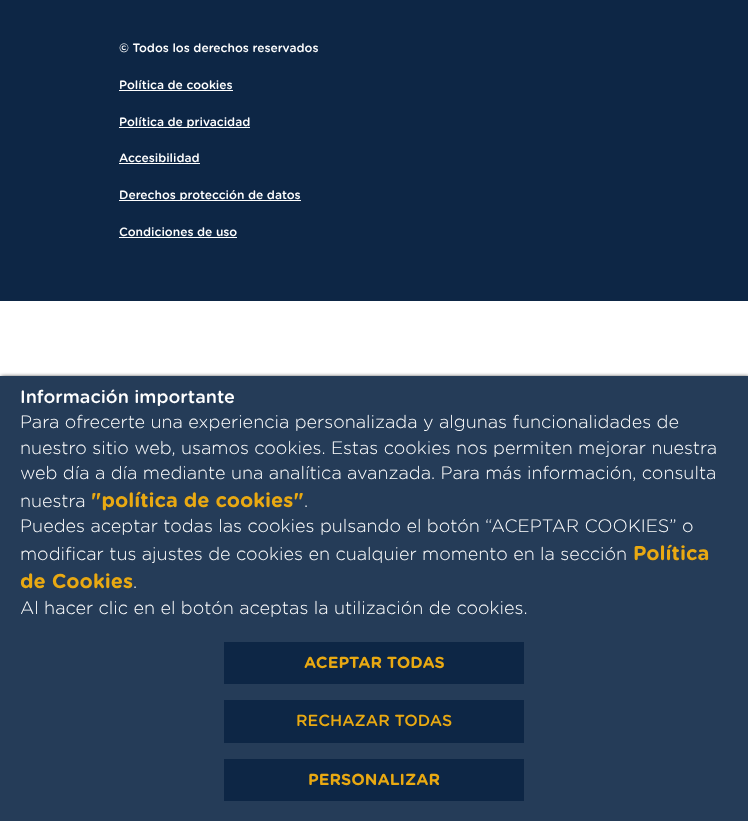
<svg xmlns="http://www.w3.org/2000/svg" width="748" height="821">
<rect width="100%" height="100%" fill="#fff"/>
<rect width="748" height="301" fill="#0d2645"/>
<text x="119" y="52" style="font-family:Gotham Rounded;font-size:12px;font-weight:500;fill:#fff">© Todos los derechos reservados</text>
<text x="119" y="89" style="font-family:Gotham Rounded;font-size:12px;font-weight:500;fill:#fff">Política de cookies</text>
<rect x="119" y="90" width="114" height="1" fill="#fff"/>
<rect x="119" y="127" width="131" height="1" fill="#fff"/>
<text x="119" y="126" style="font-family:Gotham Rounded;font-size:12px;font-weight:500;fill:#fff">Política de privacidad</text>
<text x="119" y="162" style="font-family:Gotham Rounded;font-size:12px;font-weight:500;fill:#fff">Accesibilidad</text>
<rect x="119" y="163" width="81" height="1" fill="#fff"/>
<rect x="119" y="200" width="182" height="1" fill="#fff"/>
<text x="119" y="199" style="font-family:Gotham Rounded;font-size:12px;font-weight:500;fill:#fff">Derechos protección de datos</text>
<text x="119" y="236" style="font-family:Gotham Rounded;font-size:12px;font-weight:500;fill:#fff">Condiciones de uso</text>
<rect x="119" y="237" width="118" height="1" fill="#fff"/>
<rect x="1" y="377" width="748" height="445" fill="#000" filter="blur(2px)"/>
<rect y="376" width="748" height="445" fill="#253c58"/>
<text x="20" y="403" style="font-family:Gotham Rounded;font-size:18px;font-weight:500;fill:#fff">Información importante</text>
<text x="20" y="428" style="font-family:Gotham Rounded;font-size:18px;font-weight:300;fill:#fff">Para ofrecerte una experiencia personalizada y algunas funcionalidades de</text>
<text x="20" y="454" style="font-family:Gotham Rounded;font-size:18px;font-weight:300;fill:#fff">nuestro sitio web, usamos cookies. Estas cookies nos permiten mejorar nuestra</text>
<text x="20" y="479" style="font-family:Gotham Rounded;font-size:18px;font-weight:300;fill:#fff">web día a día mediante una analítica avanzada. Para más información, consulta</text>
<text x="20" y="507" style="font-family:Gotham Rounded;font-size:18px;font-weight:300;fill:#fff">nuestra</text>
<text x="91" y="507" style="font-family:Gotham Rounded;font-size:20px;font-weight:bold;fill:#e9a912">"política de cookies"</text>
<text x="304" y="507" style="font-family:Gotham Rounded;font-size:18px;font-weight:300;fill:#fff">.</text>
<text x="20" y="532" style="font-family:Gotham Rounded;font-size:18px;font-weight:300;fill:#fff">Puedes aceptar todas las cookies pulsando el botón “ACEPTAR COOKIES” o</text>
<text x="20" y="560" style="font-family:Gotham Rounded;font-size:18px;font-weight:300;fill:#fff">modificar tus ajustes de cookies en cualquier momento en la sección</text>
<text x="633" y="560" style="font-family:Gotham Rounded;font-size:20px;font-weight:bold;fill:#e9a912">Política</text>
<text x="20" y="588" style="font-family:Gotham Rounded;font-size:20px;font-weight:bold;fill:#e9a912">de Cookies</text>
<text x="133" y="588" style="font-family:Gotham Rounded;font-size:18px;font-weight:300;fill:#fff">.</text>
<text x="20" y="614" style="font-family:Gotham Rounded;font-size:18px;font-weight:300;fill:#fff">Al hacer clic en el botón aceptas la utilización de cookies.</text>
<rect x="224" y="642" width="300" height="42" fill="#0d2645"/>
<text x="304" y="668" style="font-family:Gotham Rounded;font-size:16px;font-weight:bold;fill:#e9a912">ACEPTAR TODAS</text>
<rect x="224" y="700" width="300" height="43" fill="#0d2645"/>
<text x="296" y="726" style="font-family:Gotham Rounded;font-size:16px;font-weight:500;fill:#e9a912">RECHAZAR TODAS</text>
<rect x="224" y="759" width="300" height="42" fill="#0d2645"/>
<text x="308" y="785" style="font-family:Gotham Rounded;font-size:16px;font-weight:bold;fill:#e9a912">PERSONALIZAR</text>
</svg>
